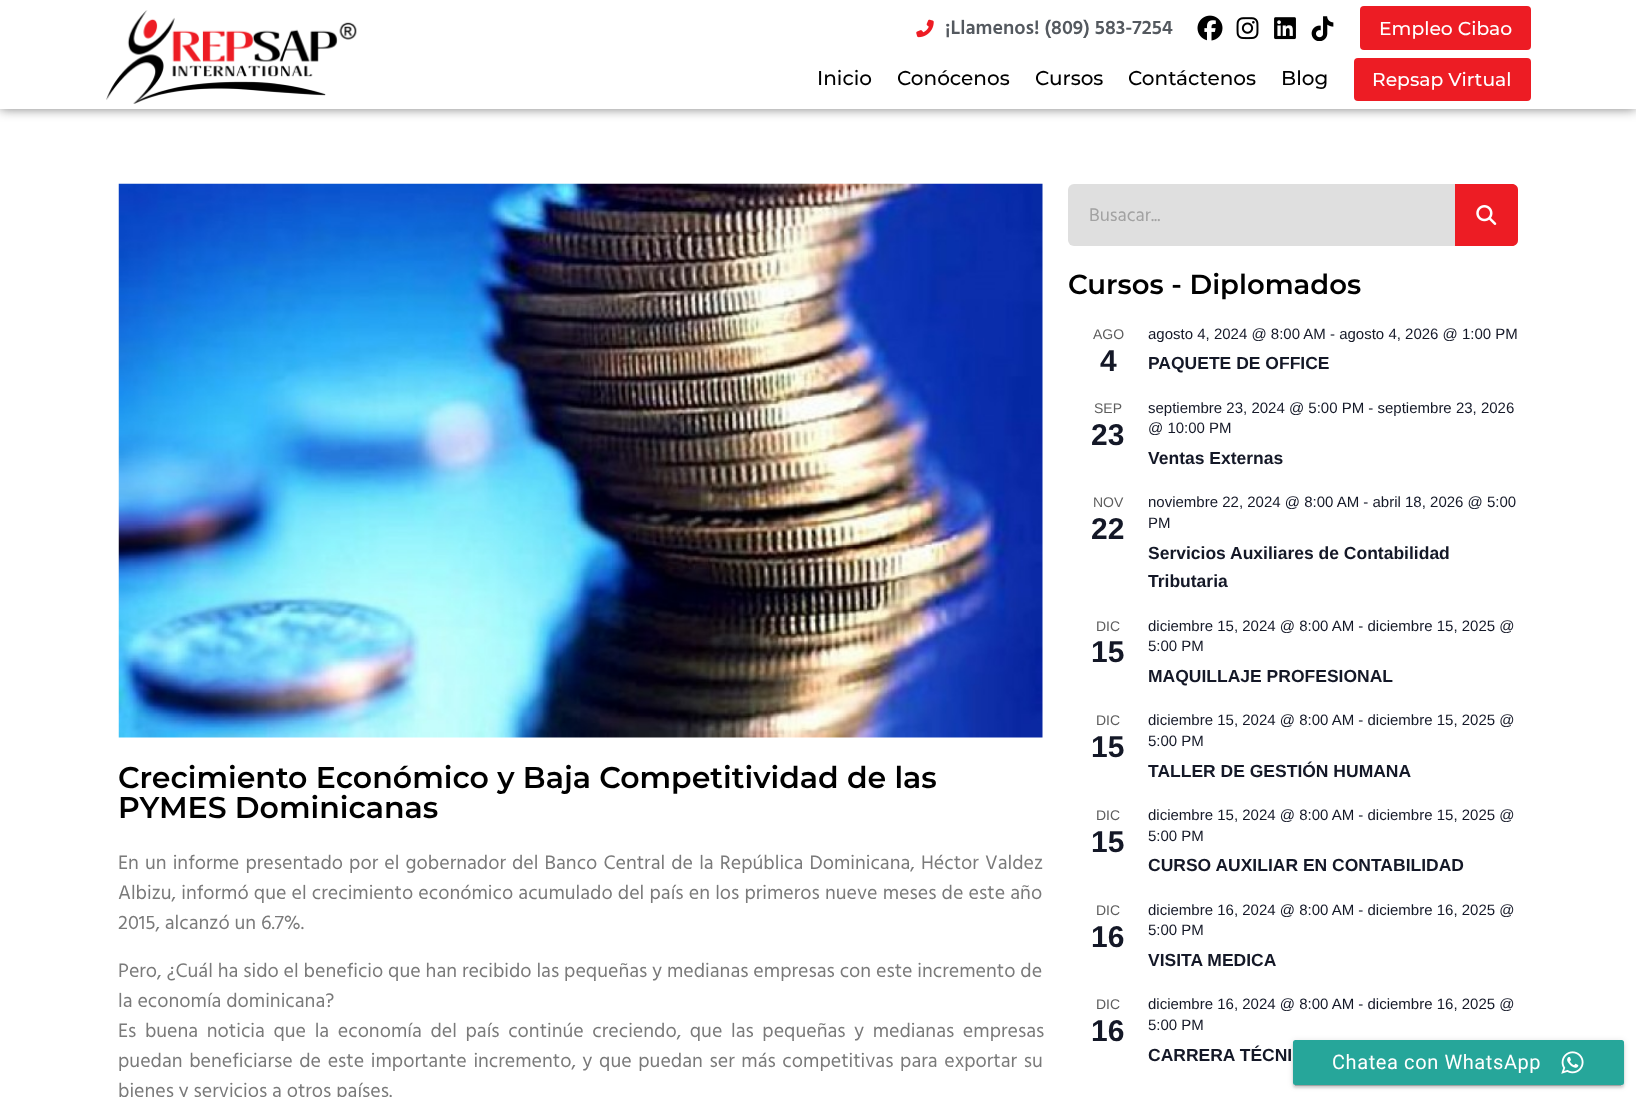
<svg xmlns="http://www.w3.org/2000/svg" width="1636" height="1097">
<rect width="100%" height="100%" fill="#fff"/>
<rect width="1636" height="109" fill="#00000080" filter="blur(6px)"/>
<rect width="1636" height="109" fill="#fff"/>
<image x="106" y="10" width="251" height="94" href="media/1.png"/>
<image x="916" y="19" width="18" height="19" href="media/2.png"/>
<text x="945" y="34" style="font-family:Hind Madurai;font-size:20px;font-weight:600;fill:#54595f">¡Llamenos! (809) 583-7254</text>
<image x="1197" y="15" width="26" height="26" href="media/3.png"/>
<image x="1236" y="17" width="23" height="23" href="media/4.png"/>
<image x="1274" y="17" width="22" height="23" href="media/5.png"/>
<image x="1311" y="16" width="23" height="25" href="media/6.png"/>
<rect x="1360" y="6" width="171" height="44" rx="4" fill="#ed1c24"/>
<text x="1379" y="35" style="font-family:Montserrat;font-size:18.75px;font-weight:500;fill:#fff">Empleo Cibao</text>
<text x="817" y="85" style="font-family:Montserrat;font-size:20px;font-weight:500;fill:#000">Inicio</text>
<text x="897" y="85" style="font-family:Montserrat;font-size:20px;font-weight:500;fill:#000">Conócenos</text>
<text x="1035" y="85" style="font-family:Montserrat;font-size:20px;font-weight:500;fill:#000">Cursos</text>
<text x="1128" y="85" style="font-family:Montserrat;font-size:20px;font-weight:500;fill:#000">Contáctenos</text>
<text x="1281" y="85" style="font-family:Montserrat;font-size:20px;font-weight:500;fill:#000">Blog</text>
<rect x="1354" y="58" width="177" height="43" rx="4" fill="#ed1c24"/>
<text x="1372" y="86" style="font-family:Montserrat;font-size:18.75px;font-weight:500;fill:#fff">Repsap Virtual</text>
<image x="118" y="183" width="925" height="555" href="media/7.png"/>
<text x="118" y="788" style="font-family:Montserrat;font-size:30px;font-weight:600;fill:#000">Crecimiento Económico y Baja Competitividad de las</text>
<text x="118" y="818" style="font-family:Montserrat;font-size:30px;font-weight:600;fill:#000">PYMES Dominicanas</text>
<text x="118" y="869" word-spacing="1.25" style="font-family:Hind Madurai;font-size:20px;fill:#7a7a7a">En un informe presentado por el gobernador del Banco Central de la República Dominicana, Héctor Valdez</text>
<text x="118" y="899" word-spacing="0.3" style="font-family:Hind Madurai;font-size:20px;fill:#7a7a7a">Albizu, informó que el crecimiento económico acumulado del país en los primeros nueve meses de este año</text>
<text x="118" y="929" style="font-family:Hind Madurai;font-size:20px;fill:#7a7a7a">2015, alcanzó un 6.7%.</text>
<text x="118" y="977" style="font-family:Hind Madurai;font-size:20px;fill:#7a7a7a">Pero, ¿Cuál ha sido el beneficio que han recibido las pequeñas y medianas empresas con este incremento de</text>
<text x="118" y="1007" style="font-family:Hind Madurai;font-size:20px;fill:#7a7a7a">la economía dominicana?</text>
<text x="118" y="1037" word-spacing="3.75" style="font-family:Hind Madurai;font-size:20px;fill:#7a7a7a">Es buena noticia que la economía del país continúe creciendo, que las pequeñas y medianas empresas</text>
<text x="118" y="1067" word-spacing="1.75" style="font-family:Hind Madurai;font-size:20px;fill:#7a7a7a">puedan beneficiarse de este importante incremento, y que puedan ser más competitivas para exportar su</text>
<text x="118" y="1097" style="font-family:Hind Madurai;font-size:20px;fill:#7a7a7a">bienes y servicios a otros países.</text>
<rect x="1068" y="184" width="450" height="62" rx="6" fill="#dfdfdf"/>
<text x="1089" y="221" style="font-family:Hind Madurai;font-size:18.75px;fill:#a2a2a2">Busacar...</text>
<path d="M1455 184h57c3.5 0 6 2.5 6 6v50c0 3.5-2.5 6-6 6h-57z" fill="#ed1c24"/>
<image x="1476" y="205" width="21" height="20" href="media/8.png"/>
<text x="1068" y="294" style="font-family:Montserrat;font-size:27.5px;font-weight:600;fill:#000">Cursos - Diplomados</text>
<text x="1093" y="339" style="font-family:Liberation Sans;font-size:14px;fill:#5d5d5d">AGO</text>
<text x="1100" y="371" style="font-family:Liberation Sans;font-size:30px;font-weight:bold;fill:#141827">4</text>
<text x="1148" y="339" style="font-family:Liberation Sans;font-size:15px;fill:#141827">agosto 4, 2024 @ 8:00 AM - agosto 4, 2026 @ 1:00 PM</text>
<text x="1148" y="369" style="font-family:Liberation Sans;font-size:17.5px;font-weight:bold;fill:#141827">PAQUETE DE OFFICE</text>
<text x="1094" y="413" style="font-family:Liberation Sans;font-size:14px;fill:#5d5d5d">SEP</text>
<text x="1091" y="445" style="font-family:Liberation Sans;font-size:30px;font-weight:bold;fill:#141827">23</text>
<text x="1148" y="413" style="font-family:Liberation Sans;font-size:15px;fill:#141827">septiembre 23, 2024 @ 5:00 PM - septiembre 23, 2026</text>
<text x="1148" y="433" style="font-family:Liberation Sans;font-size:15px;fill:#141827">@ 10:00 PM</text>
<text x="1148" y="464" style="font-family:Liberation Sans;font-size:17.5px;font-weight:bold;fill:#141827">Ventas Externas</text>
<text x="1093" y="507" style="font-family:Liberation Sans;font-size:14px;fill:#5d5d5d">NOV</text>
<text x="1091" y="539" style="font-family:Liberation Sans;font-size:30px;font-weight:bold;fill:#141827">22</text>
<text x="1148" y="507" style="font-family:Liberation Sans;font-size:15px;fill:#141827">noviembre 22, 2024 @ 8:00 AM - abril 18, 2026 @ 5:00</text>
<text x="1148" y="528" style="font-family:Liberation Sans;font-size:15px;fill:#141827">PM</text>
<text x="1148" y="559" style="font-family:Liberation Sans;font-size:17.5px;font-weight:bold;fill:#141827">Servicios Auxiliares de Contabilidad</text>
<text x="1148" y="587" style="font-family:Liberation Sans;font-size:17.5px;font-weight:bold;fill:#141827">Tributaria</text>
<text x="1096" y="631" style="font-family:Liberation Sans;font-size:14px;fill:#5d5d5d">DIC</text>
<text x="1091" y="662" style="font-family:Liberation Sans;font-size:30px;font-weight:bold;fill:#141827">15</text>
<text x="1148" y="631" style="font-family:Liberation Sans;font-size:15px;fill:#141827">diciembre 15, 2024 @ 8:00 AM - diciembre 15, 2025 @</text>
<text x="1148" y="651" style="font-family:Liberation Sans;font-size:15px;fill:#141827">5:00 PM</text>
<text x="1148" y="682" style="font-family:Liberation Sans;font-size:17.5px;font-weight:bold;fill:#141827">MAQUILLAJE PROFESIONAL</text>
<text x="1096" y="725" style="font-family:Liberation Sans;font-size:14px;fill:#5d5d5d">DIC</text>
<text x="1091" y="757" style="font-family:Liberation Sans;font-size:30px;font-weight:bold;fill:#141827">15</text>
<text x="1148" y="725" style="font-family:Liberation Sans;font-size:15px;fill:#141827">diciembre 15, 2024 @ 8:00 AM - diciembre 15, 2025 @</text>
<text x="1148" y="746" style="font-family:Liberation Sans;font-size:15px;fill:#141827">5:00 PM</text>
<text x="1148" y="777" style="font-family:Liberation Sans;font-size:17.5px;font-weight:bold;fill:#141827">TALLER DE GESTIÓN HUMANA</text>
<text x="1096" y="820" style="font-family:Liberation Sans;font-size:14px;fill:#5d5d5d">DIC</text>
<text x="1091" y="852" style="font-family:Liberation Sans;font-size:30px;font-weight:bold;fill:#141827">15</text>
<text x="1148" y="820" style="font-family:Liberation Sans;font-size:15px;fill:#141827">diciembre 15, 2024 @ 8:00 AM - diciembre 15, 2025 @</text>
<text x="1148" y="841" style="font-family:Liberation Sans;font-size:15px;fill:#141827">5:00 PM</text>
<text x="1148" y="871" style="font-family:Liberation Sans;font-size:17.5px;font-weight:bold;fill:#141827">CURSO AUXILIAR EN CONTABILIDAD</text>
<text x="1096" y="915" style="font-family:Liberation Sans;font-size:14px;fill:#5d5d5d">DIC</text>
<text x="1091" y="947" style="font-family:Liberation Sans;font-size:30px;font-weight:bold;fill:#141827">16</text>
<text x="1148" y="915" style="font-family:Liberation Sans;font-size:15px;fill:#141827">diciembre 16, 2024 @ 8:00 AM - diciembre 16, 2025 @</text>
<text x="1148" y="935" style="font-family:Liberation Sans;font-size:15px;fill:#141827">5:00 PM</text>
<text x="1148" y="966" style="font-family:Liberation Sans;font-size:17.5px;font-weight:bold;fill:#141827">VISITA MEDICA</text>
<text x="1096" y="1009" style="font-family:Liberation Sans;font-size:14px;fill:#5d5d5d">DIC</text>
<text x="1091" y="1041" style="font-family:Liberation Sans;font-size:30px;font-weight:bold;fill:#141827">16</text>
<text x="1148" y="1009" style="font-family:Liberation Sans;font-size:15px;fill:#141827">diciembre 16, 2024 @ 8:00 AM - diciembre 16, 2025 @</text>
<text x="1148" y="1030" style="font-family:Liberation Sans;font-size:15px;fill:#141827">5:00 PM</text>
<text x="1148" y="1061" style="font-family:Liberation Sans;font-size:17.5px;font-weight:bold;fill:#141827">CARRERA TÉCNI</text>
<rect x="1295" y="1046" width="326" height="40" fill="#00000033" filter="blur(0.5px)"/>
<rect x="1293" y="1041" width="331" height="45" rx="2.5" fill="#0000001f" filter="blur(3px)"/>
<rect x="1293" y="1043" width="331" height="45" rx="2.5" fill="#00000024" filter="blur(1px)"/>
<rect x="1293" y="1040" width="331" height="45" rx="2.5" fill="#26a69a"/>
<text x="1332" y="1069" style="font-family:Roboto;font-size:20px;letter-spacing:0.6px;fill:#fff">Chatea con WhatsApp</text>
<image x="1561" y="1051" width="23" height="23" href="media/9.png"/>
</svg>
